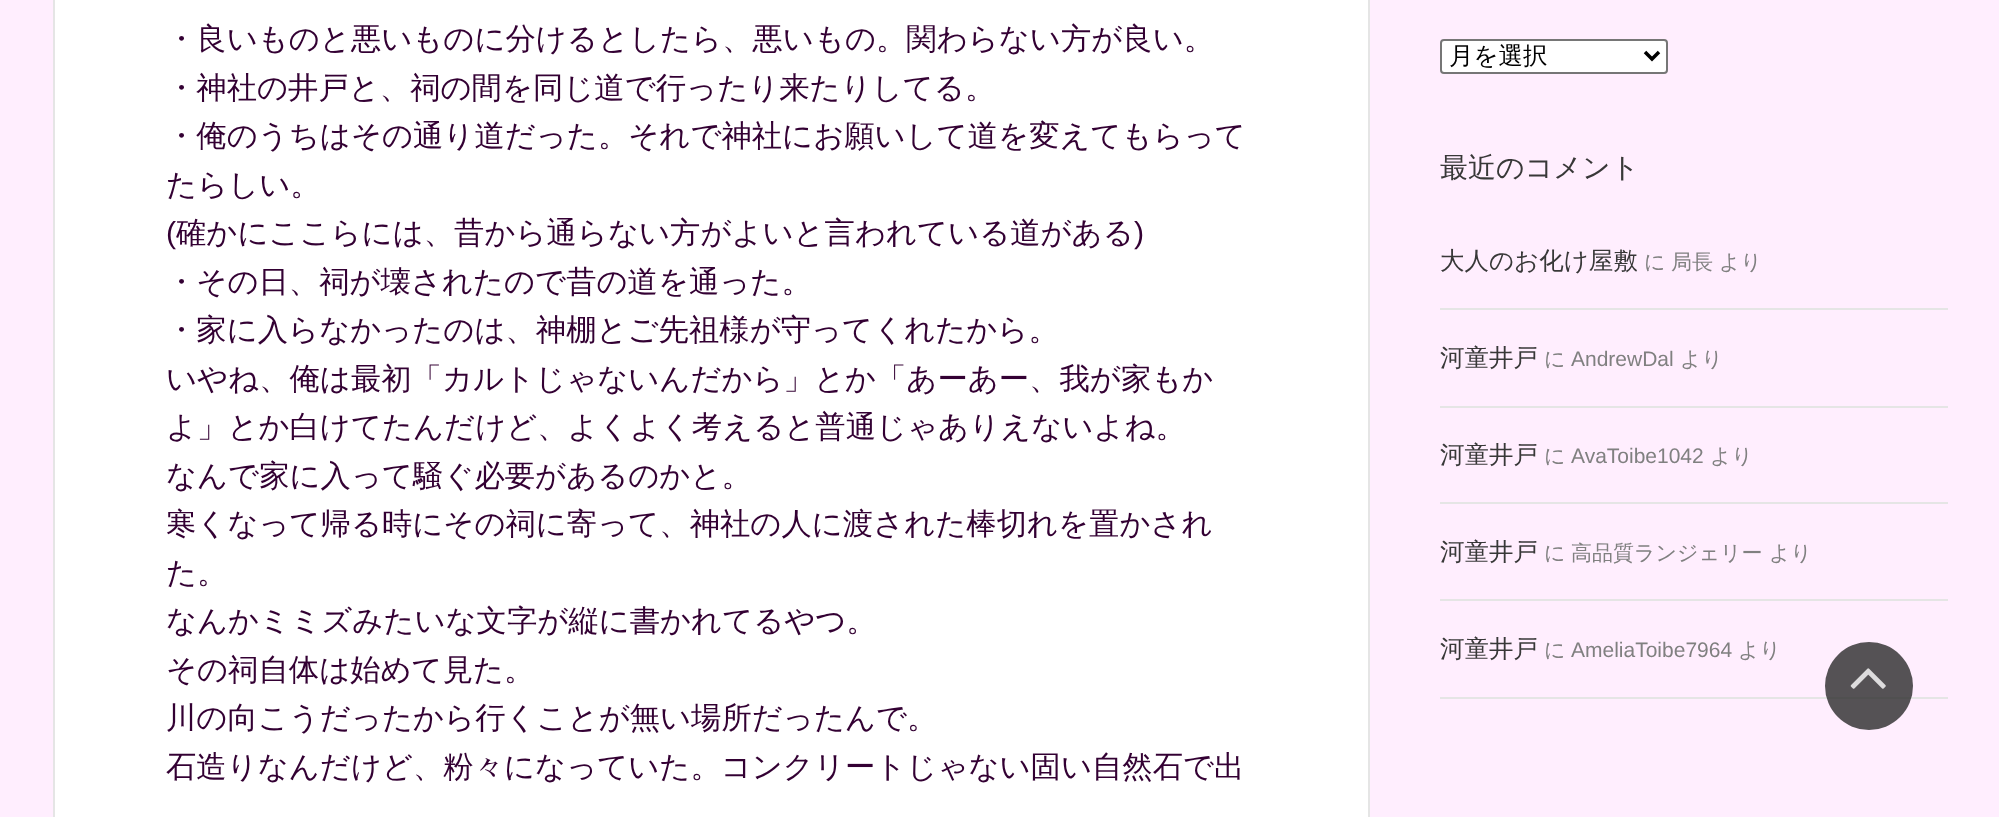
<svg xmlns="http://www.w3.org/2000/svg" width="1999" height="817">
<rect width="100%" height="100%" fill="#ffeefe"/>
<rect x="54" y="-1" width="1315" height="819" fill="#fff" stroke="#e5e5e5" stroke-width="2"/>
<text x="166" y="49" style="font-family:WenQuanYi Zen Hei;font-size:30.35px;font-weight:500;fill:#303">・良いものと悪いものに分けるとしたら、悪いもの。関わらない方が良い。</text>
<text x="166" y="98" style="font-family:WenQuanYi Zen Hei;font-size:30.35px;font-weight:500;fill:#303">・神社の井戸と、祠の間を同じ道で行ったり来たりしてる。</text>
<text x="166" y="146" style="font-family:WenQuanYi Zen Hei;font-size:30.35px;font-weight:500;fill:#303">・俺のうちはその通り道だった。それで神社にお願いして道を変えてもらって</text>
<text x="166" y="195" style="font-family:WenQuanYi Zen Hei;font-size:30.35px;font-weight:500;fill:#303">たらしい。</text>
<text x="166" y="243" style="font-family:Liberation Sans;font-size:30.35px;fill:#303">(</text>
<text x="176" y="243" style="font-family:WenQuanYi Zen Hei;font-size:30.35px;font-weight:500;fill:#303">確かにここらには、昔から通らない方がよいと言われている道がある</text>
<text x="1134" y="243" style="font-family:Liberation Sans;font-size:30.35px;fill:#303">)</text>
<text x="166" y="292" style="font-family:WenQuanYi Zen Hei;font-size:30.35px;font-weight:500;fill:#303">・その日、祠が壊されたので昔の道を通った。</text>
<text x="166" y="340" style="font-family:WenQuanYi Zen Hei;font-size:30.35px;font-weight:500;fill:#303">・家に入らなかったのは、神棚とご先祖様が守ってくれたから。</text>
<text x="166" y="389" style="font-family:WenQuanYi Zen Hei;font-size:30.35px;font-weight:500;fill:#303">いやね、俺は最初「カルトじゃないんだから」とか「あーあー、我が家もか</text>
<text x="166" y="437" style="font-family:WenQuanYi Zen Hei;font-size:30.35px;font-weight:500;fill:#303">よ」とか白けてたんだけど、よくよく考えると普通じゃありえないよね。</text>
<text x="166" y="486" style="font-family:WenQuanYi Zen Hei;font-size:30.35px;font-weight:500;fill:#303">なんで家に入って騒ぐ必要があるのかと。</text>
<text x="166" y="534" style="font-family:WenQuanYi Zen Hei;font-size:30.35px;font-weight:500;fill:#303">寒くなって帰る時にその祠に寄って、神社の人に渡された棒切れを置かされ</text>
<text x="166" y="583" style="font-family:WenQuanYi Zen Hei;font-size:30.35px;font-weight:500;fill:#303">た。</text>
<text x="166" y="631" style="font-family:WenQuanYi Zen Hei;font-size:30.35px;font-weight:500;fill:#303">なんかミミズみたいな文字が縦に書かれてるやつ。</text>
<text x="166" y="680" style="font-family:WenQuanYi Zen Hei;font-size:30.35px;font-weight:500;fill:#303">その祠自体は始めて見た。</text>
<text x="166" y="728" style="font-family:WenQuanYi Zen Hei;font-size:30.35px;font-weight:500;fill:#303">川の向こうだったから行くことが無い場所だったんで。</text>
<text x="166" y="777" style="font-family:WenQuanYi Zen Hei;font-size:30.35px;font-weight:500;fill:#303">石造りなんだけど、粉々になっていた。コンクリートじゃない固い自然石で出</text>
<rect x="1441" y="40" width="226" height="33" rx="3" fill="#fff" stroke="#767676" stroke-width="2"/>
<path d="M1645 52l7 7l7-7" fill="none" stroke="#000" stroke-width="3.5"/>
<text x="1449" y="64" style="font-family:WenQuanYi Zen Hei;font-size:24.5px;font-weight:500;fill:#000">月を選択</text>
<text x="1440" y="177" style="font-family:WenQuanYi Zen Hei;font-size:28px;font-weight:500;fill:#383838">最近のコメント</text>
<rect x="1440" y="308" width="508" height="2" fill="#e5e5e5"/>
<text x="1440" y="269" style="font-family:WenQuanYi Zen Hei;font-size:24.5px;font-weight:500;fill:#383838">大人のお化け屋敷</text>
<text x="1644" y="269" style="font-family:WenQuanYi Zen Hei;font-size:21px;font-weight:500;fill:#808080">に</text>
<text x="1671" y="269" style="font-family:WenQuanYi Zen Hei;font-size:21px;font-weight:500;fill:#808080">局長</text>
<text x="1719" y="269" style="font-family:WenQuanYi Zen Hei;font-size:21px;font-weight:500;fill:#808080">より</text>
<rect x="1440" y="406" width="508" height="2" fill="#e5e5e5"/>
<text x="1440" y="366" style="font-family:WenQuanYi Zen Hei;font-size:24.5px;font-weight:500;fill:#383838">河童井戸</text>
<text x="1544" y="366" style="font-family:WenQuanYi Zen Hei;font-size:21px;font-weight:500;fill:#808080">に</text>
<text x="1571" y="366" style="font-family:Liberation Sans;font-size:21px;fill:#808080">AndrewDal</text>
<text x="1680" y="366" style="font-family:WenQuanYi Zen Hei;font-size:21px;font-weight:500;fill:#808080">より</text>
<rect x="1440" y="502" width="508" height="2" fill="#e5e5e5"/>
<text x="1440" y="463" style="font-family:WenQuanYi Zen Hei;font-size:24.5px;font-weight:500;fill:#383838">河童井戸</text>
<text x="1544" y="463" style="font-family:WenQuanYi Zen Hei;font-size:21px;font-weight:500;fill:#808080">に</text>
<text x="1571" y="463" style="font-family:Liberation Sans;font-size:21px;fill:#808080">AvaToibe1042</text>
<text x="1710" y="463" style="font-family:WenQuanYi Zen Hei;font-size:21px;font-weight:500;fill:#808080">より</text>
<rect x="1440" y="599" width="508" height="2" fill="#e5e5e5"/>
<text x="1440" y="560" style="font-family:WenQuanYi Zen Hei;font-size:24.5px;font-weight:500;fill:#383838">河童井戸</text>
<text x="1544" y="560" style="font-family:WenQuanYi Zen Hei;font-size:21px;font-weight:500;fill:#808080">に</text>
<text x="1571" y="560" style="font-family:WenQuanYi Zen Hei;font-size:21px;font-weight:500;fill:#808080">高品質ランジェリー</text>
<text x="1769" y="560" style="font-family:WenQuanYi Zen Hei;font-size:21px;font-weight:500;fill:#808080">より</text>
<rect x="1440" y="697" width="508" height="2" fill="#e5e5e5"/>
<text x="1440" y="657" style="font-family:WenQuanYi Zen Hei;font-size:24.5px;font-weight:500;fill:#383838">河童井戸</text>
<text x="1544" y="657" style="font-family:WenQuanYi Zen Hei;font-size:21px;font-weight:500;fill:#808080">に</text>
<text x="1571" y="657" style="font-family:Liberation Sans;font-size:21px;fill:#808080">AmeliaToibe7964</text>
<text x="1738" y="657" style="font-family:WenQuanYi Zen Hei;font-size:21px;font-weight:500;fill:#808080">より</text>
<circle cx="1869" cy="686" r="44" fill="#2b2b2bcc"/>
<image x="1850" y="668" width="36" height="21" href="media/1.png"/>
</svg>
